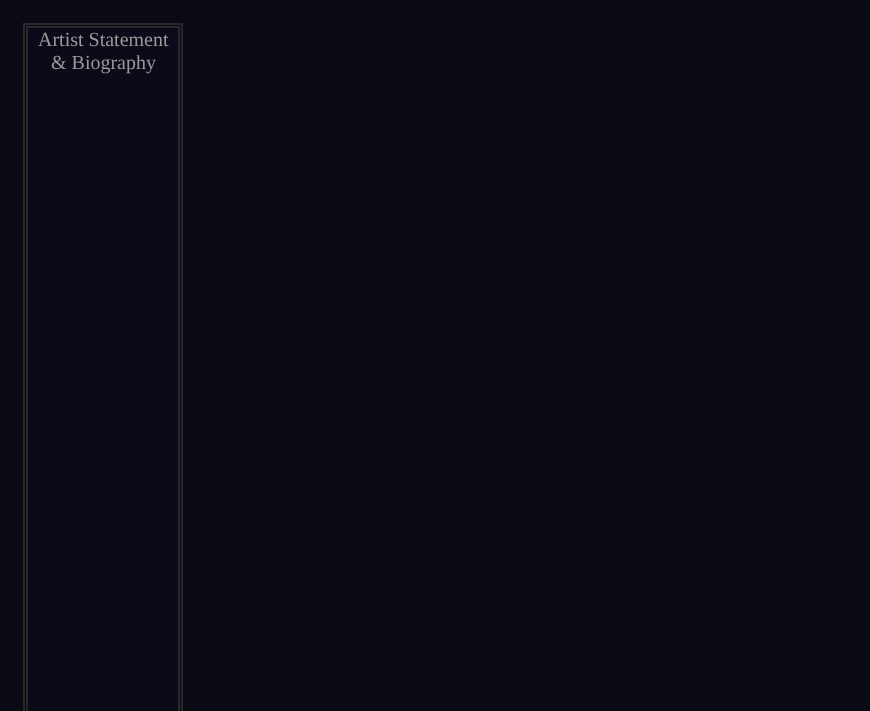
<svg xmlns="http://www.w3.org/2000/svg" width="870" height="711">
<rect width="100%" height="100%" fill="#0a0a14"/>
<rect x="24" y="24" width="158" height="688" fill="#0a0a19" stroke="#282828" stroke-width="2"/>
<rect x="27" y="27" width="152" height="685" fill="none" stroke="#282828" stroke-width="2"/>
<text x="38" y="46" style="font-family:Liberation Serif;font-size:20px;fill:#999">Artist Statement</text>
<text x="51" y="69" style="font-family:Liberation Serif;font-size:20px;fill:#999">&amp; Biography</text>
</svg>
